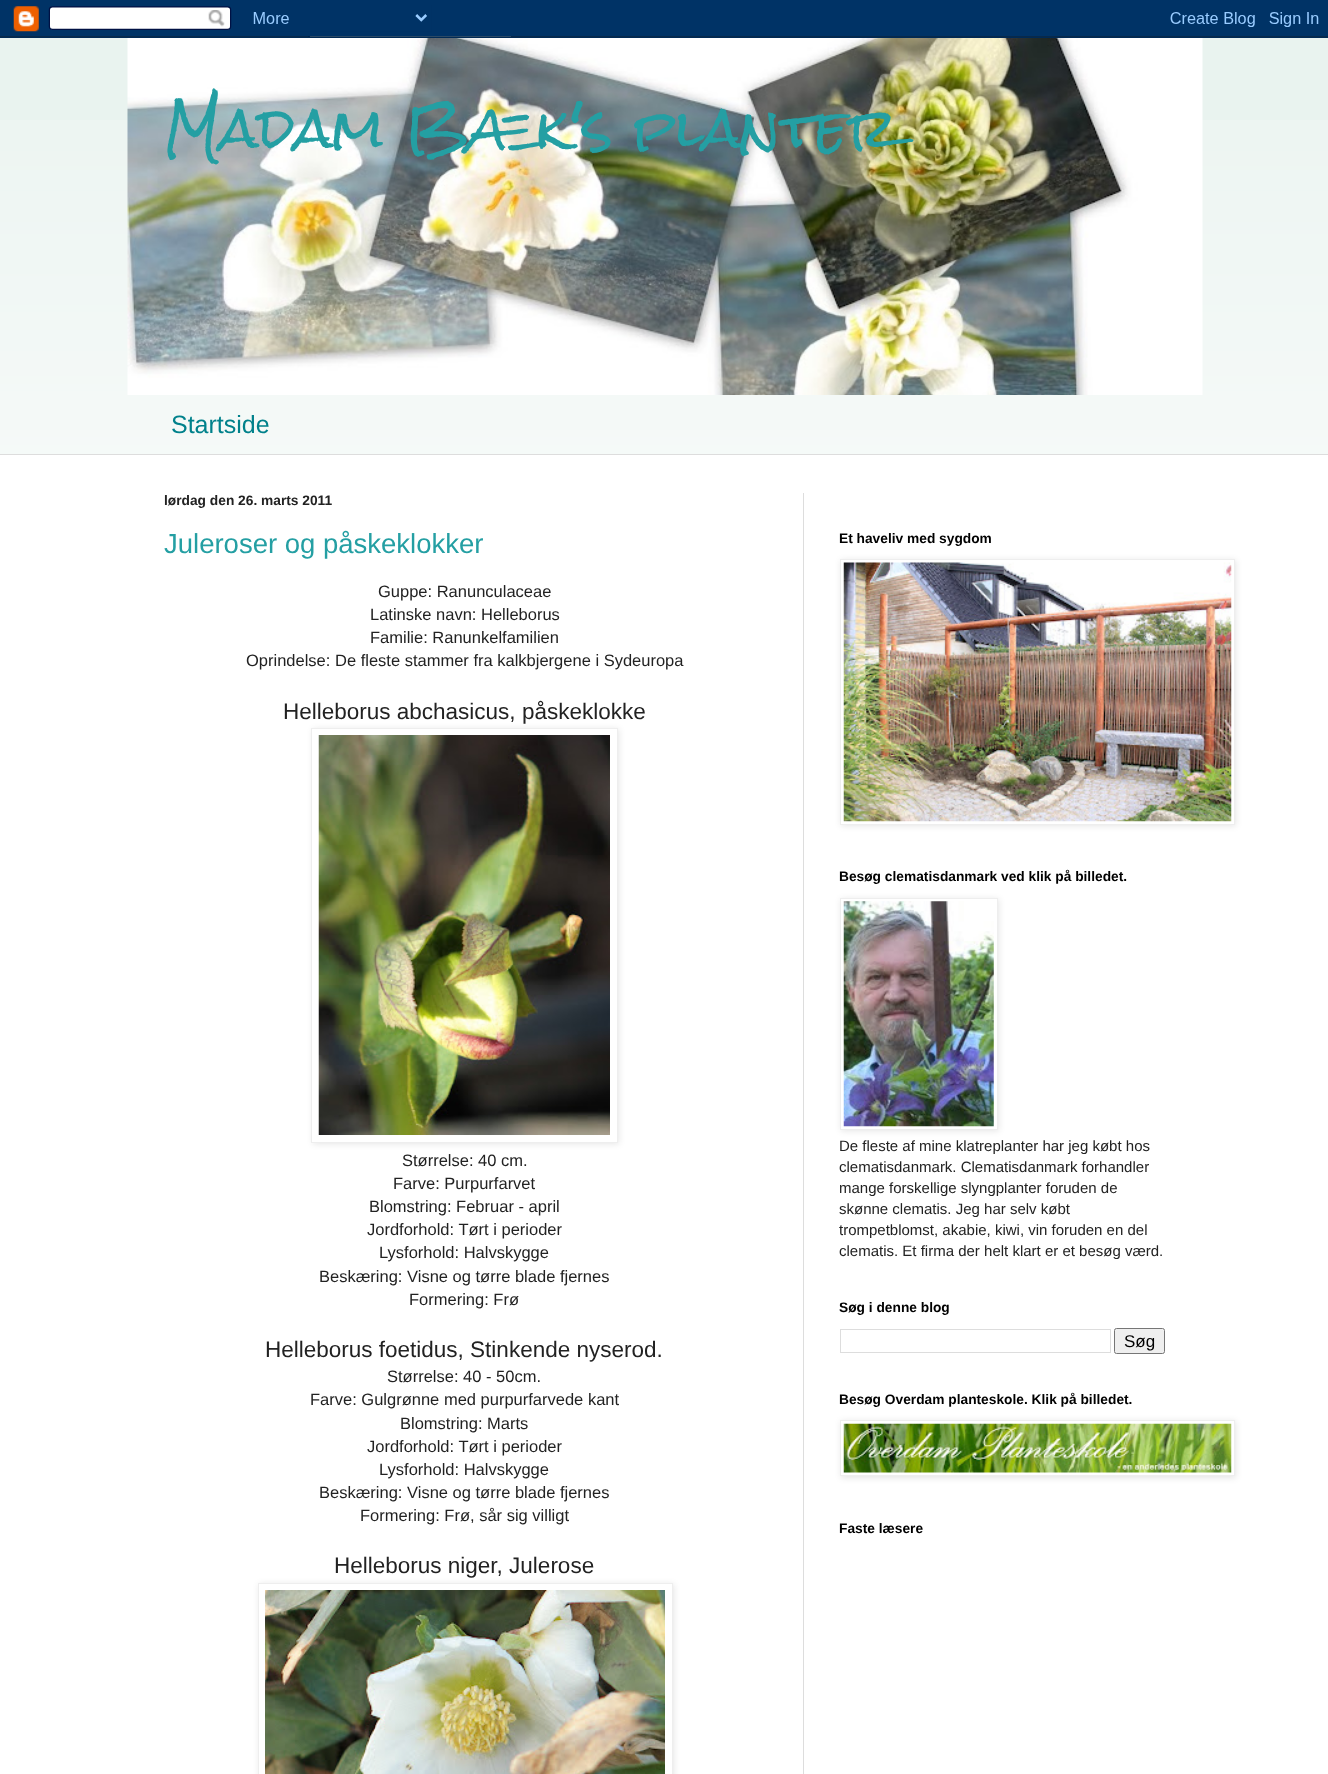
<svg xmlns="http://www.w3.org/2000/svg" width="1328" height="1774">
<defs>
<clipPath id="clip1"><path d="M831 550h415v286h-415zm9 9h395v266h-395z" clip-rule="evenodd"/></clipPath>
<clipPath id="clip2"><path d="M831 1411h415v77h-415zm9 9h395v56h-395z" clip-rule="evenodd"/></clipPath>
</defs>
<rect width="100%" height="100%" fill="#e9f3ef"/>
<image x="0" y="0" width="1328" height="38" href="media/1.png"/>
<image x="0" y="120" width="1328" height="334" href="media/8.png"/>
<image x="127" y="38" width="1076" height="357" href="media/2.png"/>
<text x="164" y="149" style="font-family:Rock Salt;font-size:52.5px;fill:#249fa3">Madam Bæk's planter</text>
<text x="171" y="433" style="font-family:Liberation Sans;font-size:25px;fill:#00818b">Startside</text>
<rect y="455" width="1328" height="1319" fill="#fff"/>
<rect y="454" width="1328" height="1" fill="#ddd"/>
<rect x="803" y="493" width="1" height="1281" fill="#ddd"/>
<text x="164" y="505" style="font-family:Liberation Sans;font-size:13.75px;font-weight:bold;fill:#222">lørdag den 26. marts 2011</text>
<text x="164" y="553" style="font-family:Liberation Sans;font-size:27.5px;fill:#249fa3">Juleroser og påskeklokker</text>
<text x="378" y="597" style="font-family:Liberation Sans;font-size:16.5px;fill:#222">Guppe: Ranunculaceae</text>
<text x="370" y="620" style="font-family:Liberation Sans;font-size:16.5px;fill:#222">Latinske navn: Helleborus</text>
<text x="370" y="643" style="font-family:Liberation Sans;font-size:16.5px;fill:#222">Familie: Ranunkelfamilien</text>
<text x="246" y="666" style="font-family:Liberation Sans;font-size:16.5px;fill:#222">Oprindelse: De fleste stammer fra kalkbjergene i Sydeuropa</text>
<text x="283" y="719" style="font-family:Liberation Sans;font-size:22.5px;fill:#222">Helleborus abchasicus, påskeklokke</text>
<rect x="313" y="729" width="306" height="415" fill="#0000001a" filter="blur(3px)"/>
<rect x="311.5" y="728.5" width="306" height="414" fill="#fff" stroke="#eee"/>
<image x="318" y="735" width="292" height="400" href="media/3.png"/>
<text x="402" y="1166" style="font-family:Liberation Sans;font-size:16.5px;fill:#222">Størrelse: 40 cm.</text>
<text x="393" y="1189" style="font-family:Liberation Sans;font-size:16.5px;fill:#222">Farve: Purpurfarvet</text>
<text x="369" y="1212" style="font-family:Liberation Sans;font-size:16.5px;fill:#222">Blomstring: Februar - april</text>
<text x="367" y="1235" style="font-family:Liberation Sans;font-size:16.5px;fill:#222">Jordforhold: Tørt i perioder</text>
<text x="379" y="1258" style="font-family:Liberation Sans;font-size:16.5px;fill:#222">Lysforhold: Halvskygge</text>
<text x="319" y="1282" style="font-family:Liberation Sans;font-size:16.5px;fill:#222">Beskæring: Visne og tørre blade fjernes</text>
<text x="409" y="1305" style="font-family:Liberation Sans;font-size:16.5px;fill:#222">Formering: Frø</text>
<text x="265" y="1357" style="font-family:Liberation Sans;font-size:22.5px;fill:#222">Helleborus foetidus, Stinkende nyserod.</text>
<text x="387" y="1382" style="font-family:Liberation Sans;font-size:16.5px;fill:#222">Størrelse: 40 - 50cm.</text>
<text x="310" y="1405" style="font-family:Liberation Sans;font-size:16.5px;fill:#222">Farve: Gulgrønne med purpurfarvede kant</text>
<text x="400" y="1429" style="font-family:Liberation Sans;font-size:16.5px;fill:#222">Blomstring: Marts</text>
<text x="367" y="1452" style="font-family:Liberation Sans;font-size:16.5px;fill:#222">Jordforhold: Tørt i perioder</text>
<text x="379" y="1475" style="font-family:Liberation Sans;font-size:16.5px;fill:#222">Lysforhold: Halvskygge</text>
<text x="319" y="1498" style="font-family:Liberation Sans;font-size:16.5px;fill:#222">Beskæring: Visne og tørre blade fjernes</text>
<text x="360" y="1521" style="font-family:Liberation Sans;font-size:16.5px;fill:#222">Formering: Frø, sår sig villigt</text>
<text x="334" y="1573" style="font-family:Liberation Sans;font-size:22.5px;fill:#222">Helleborus niger, Julerose</text>
<rect x="259" y="1584" width="415" height="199" fill="#0000001a" filter="blur(3px)"/>
<rect x="258.5" y="1583.5" width="414" height="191" fill="#fff" stroke="#eee"/>
<image x="265" y="1590" width="400" height="184" href="media/4.png"/>
<text x="839" y="543" style="font-family:Liberation Sans;font-size:13.75px;font-weight:bold;fill:#000">Et haveliv med sygdom</text>
<g clip-path="url(#clip1)">
<rect x="841" y="560" width="395" height="266" fill="#0000001a" filter="blur(3px)"/>
</g>
<rect x="840.5" y="559.5" width="394" height="265" fill="none" stroke="#eee"/>
<image x="843" y="562" width="389" height="260" href="media/5.png"/>
<text x="839" y="881" style="font-family:Liberation Sans;font-size:13.75px;font-weight:bold;fill:#000">Besøg clematisdanmark ved klik på billedet.</text>
<rect x="841" y="899" width="158" height="232" fill="#0000001a" filter="blur(3px)"/>
<rect x="840.5" y="898.5" width="157" height="231" fill="#fff" stroke="#eee"/>
<image x="843" y="901" width="151" height="226" href="media/6.png"/>
<text x="839" y="1151" style="font-family:Liberation Sans;font-size:15px;fill:#222">De fleste af mine klatreplanter har jeg købt hos</text>
<text x="839" y="1172" style="font-family:Liberation Sans;font-size:15px;fill:#222">clematisdanmark. Clematisdanmark forhandler</text>
<text x="839" y="1193" style="font-family:Liberation Sans;font-size:15px;fill:#222">mange forskellige slyngplanter foruden de</text>
<text x="839" y="1214" style="font-family:Liberation Sans;font-size:15px;fill:#222">skønne clematis. Jeg har selv købt</text>
<text x="839" y="1235" style="font-family:Liberation Sans;font-size:15px;fill:#222">trompetblomst, akabie, kiwi, vin foruden en del</text>
<text x="839" y="1256" style="font-family:Liberation Sans;font-size:15px;fill:#222">clematis. Et firma der helt klart er et besøg værd.</text>
<text x="839" y="1312" style="font-family:Liberation Sans;font-size:13.75px;font-weight:bold;fill:#000">Søg i denne blog</text>
<rect x="840.5" y="1329.5" width="270" height="23" fill="none" stroke="#ddd"/>
<rect x="1114.5" y="1328.5" width="50" height="25" rx="2" fill="#efefef" stroke="#767676"/>
<text x="1124" y="1347" style="font-family:Liberation Sans;font-size:17px;fill:#000">Søg</text>
<text x="839" y="1404" style="font-family:Liberation Sans;font-size:13.75px;font-weight:bold;fill:#000">Besøg Overdam planteskole. Klik på billedet.</text>
<g clip-path="url(#clip2)">
<rect x="841" y="1421" width="395" height="57" fill="#0000001a" filter="blur(3px)"/>
</g>
<rect x="840.5" y="1420.5" width="394" height="55" fill="none" stroke="#eee"/>
<image x="843" y="1423" width="389" height="50" href="media/7.png"/>
<text x="839" y="1533" style="font-family:Liberation Sans;font-size:13.75px;font-weight:bold;fill:#000">Faste læsere</text>
</svg>
